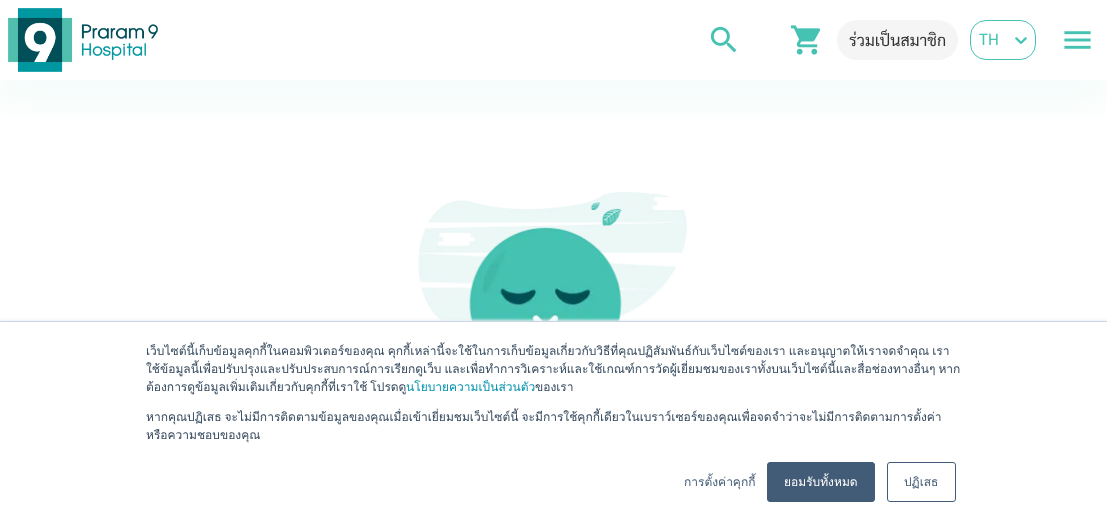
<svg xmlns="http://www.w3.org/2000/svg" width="1107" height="528">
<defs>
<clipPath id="clip1"><rect x="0" y="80" width="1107" height="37"/></clipPath>
</defs>
<rect width="100%" height="100%" fill="#fff"/>
<g clip-path="url(#clip1)">
<rect y="20" width="1107" height="80" fill="#7cd4c81a" filter="blur(20px)"/>
</g>
<image x="8" y="8" width="150" height="64" href="media/1.png"/>
<image x="710" y="26" width="27" height="27" href="media/2.png"/>
<image x="790" y="25" width="31" height="30" href="media/3.png"/>
<rect x="837" y="20" width="121" height="40" rx="20" fill="#f5f5f5"/>
<text x="849" y="46" style="font-family:Sarabun;font-size:16px;fill:#333">ร่วมเป็นสมาชิก</text>
<rect x="970.5" y="20.5" width="65" height="39" rx="15.5" fill="none" stroke="#45c2b1"/>
<text x="979" y="45" style="font-family:Sarabun;font-size:16px;fill:#45c2b1">TH</text>
<image x="1015" y="37" width="12" height="7" href="media/4.png"/>
<image x="1064" y="31" width="27" height="18" href="media/5.png"/>
<image x="418" y="192" width="269" height="129" href="media/6.png"/>
<rect y="320" width="1107" height="207" fill="#eaf0f6" filter="blur(1.5px)"/>
<rect y="322" width="1107" height="206" fill="#fff"/>
<rect y="321" width="1107" height="1" fill="#cbd6e2"/>
<text x="146" y="355" word-spacing="-1" style="font-family:Loma;font-size:12px;fill:#33475b">เว็บไซต์นี้เก็บข้อมูลคุกกี้ในคอมพิวเตอร์ของคุณ คุกกี้เหล่านี้จะใช้ในการเก็บข้อมูลเกี่ยวกับวิธีที่คุณปฏิสัมพันธ์กับเว็บไซต์ของเรา และอนุญาตให้เราจดจำคุณ เรา</text>
<text x="146" y="373" word-spacing="-1" style="font-family:Loma;font-size:12px;fill:#33475b">ใช้ข้อมูลนี้เพื่อปรับปรุงและปรับประสบการณ์การเรียกดูเว็บ และเพื่อทำการวิเคราะห์และใช้เกณฑ์การวัดผู้เยี่ยมชมของเราทั้งบนเว็บไซต์นี้และสื่อช่องทางอื่นๆ หาก</text>
<text x="146" y="391" word-spacing="-1" style="font-family:Loma;font-size:12px;fill:#33475b">ต้องการดูข้อมูลเพิ่มเติมเกี่ยวกับคุกกี้ที่เราใช้ โปรดดู</text>
<text x="406" y="391" style="font-family:Loma;font-size:12px;fill:#0091ae">นโยบายความเป็นส่วนตัว</text>
<text x="535" y="391" style="font-family:Loma;font-size:12px;fill:#33475b">ของเรา</text>
<text x="146" y="421" word-spacing="-1" style="font-family:Loma;font-size:12px;fill:#33475b">หากคุณปฏิเสธ จะไม่มีการติดตามข้อมูลของคุณเมื่อเข้าเยี่ยมชมเว็บไซต์นี้ จะมีการใช้คุกกี้เดียวในเบราว์เซอร์ของคุณเพื่อจดจำว่าจะไม่มีการติดตามการตั้งค่า</text>
<text x="146" y="439" style="font-family:Loma;font-size:12px;fill:#33475b">หรือความชอบของคุณ</text>
<text x="684" y="486" style="font-family:Loma;font-size:12px;fill:#425b76">การตั้งค่าคุกกี้</text>
<rect x="767.5" y="462.5" width="107" height="39" rx="2.5" fill="#425b76" stroke="#425b76"/>
<text x="784" y="486" style="font-family:Loma;font-size:12px;fill:#fff">ยอมรับทั้งหมด</text>
<rect x="887.5" y="462.5" width="68" height="39" rx="2.5" fill="none" stroke="#425b76"/>
<text x="904" y="486" style="font-family:Loma;font-size:12px;fill:#425b76">ปฏิเสธ</text>
</svg>
